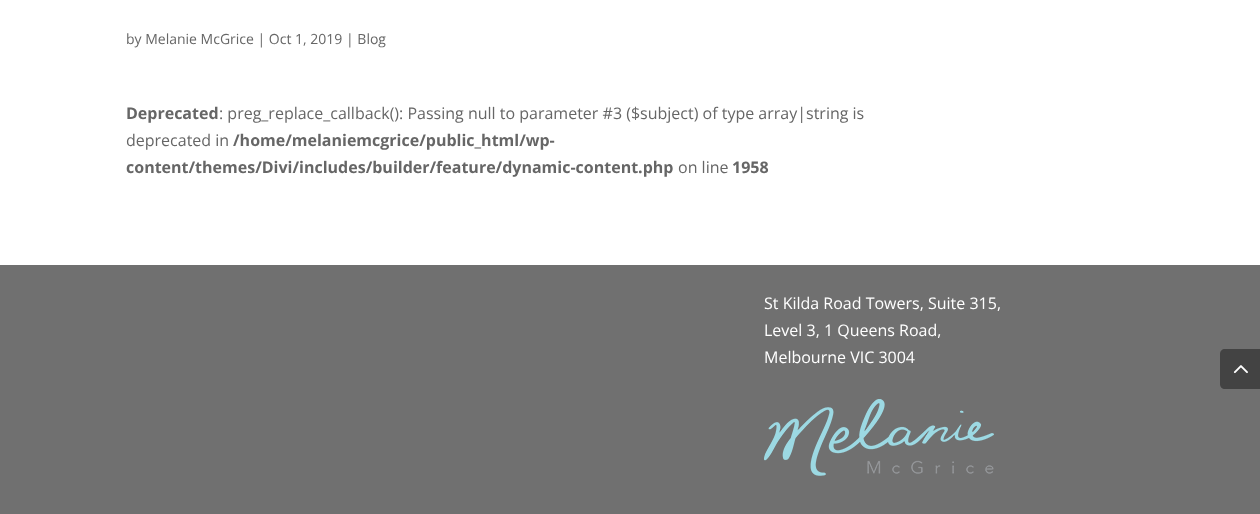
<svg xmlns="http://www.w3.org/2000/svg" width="1260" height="514">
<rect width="100%" height="100%" fill="#fff"/>
<text x="126" y="44" style="font-family:Open Sans;font-size:14px;fill:#666">by Melanie McGrice | Oct 1, 2019 | Blog</text>
<text x="126" y="119" style="font-family:Open Sans;font-size:16px;font-weight:bold;fill:#666">Deprecated</text>
<text x="219" y="119" style="font-family:Open Sans;font-size:16px;fill:#666">: preg_replace_callback(): Passing null to parameter #3 ($subject) of type array|string is</text>
<text x="126" y="146" style="font-family:Open Sans;font-size:16px;fill:#666">deprecated in</text>
<text x="233" y="146" style="font-family:Open Sans;font-size:16px;font-weight:bold;fill:#666">/home/melaniemcgrice/public_html/wp-</text>
<text x="126" y="173" style="font-family:Open Sans;font-size:16px;font-weight:bold;fill:#666">content/themes/Divi/includes/builder/feature/dynamic-content.php</text>
<text x="678" y="173" style="font-family:Open Sans;font-size:16px;fill:#666">on line</text>
<text x="732" y="173" style="font-family:Open Sans;font-size:16px;font-weight:bold;fill:#666">1958</text>
<rect y="265" width="1260" height="249" fill="#707070"/>
<text x="764" y="309" style="font-family:Open Sans;font-size:16px;fill:#fff">St Kilda Road Towers, Suite 315,</text>
<text x="764" y="336" style="font-family:Open Sans;font-size:16px;fill:#fff">Level 3, 1 Queens Road,</text>
<text x="764" y="363" style="font-family:Open Sans;font-size:16px;fill:#fff">Melbourne VIC 3004</text>
<image x="764" y="399" width="230" height="77" href="media/1.png"/>
<path d="M1225 349h35v40h-35c-3 0-5-2-5-5v-30c0-3 2-5 5-5z" fill="#434343"/>
<image x="1233" y="365" width="15" height="9" href="media/2.png"/>
</svg>
